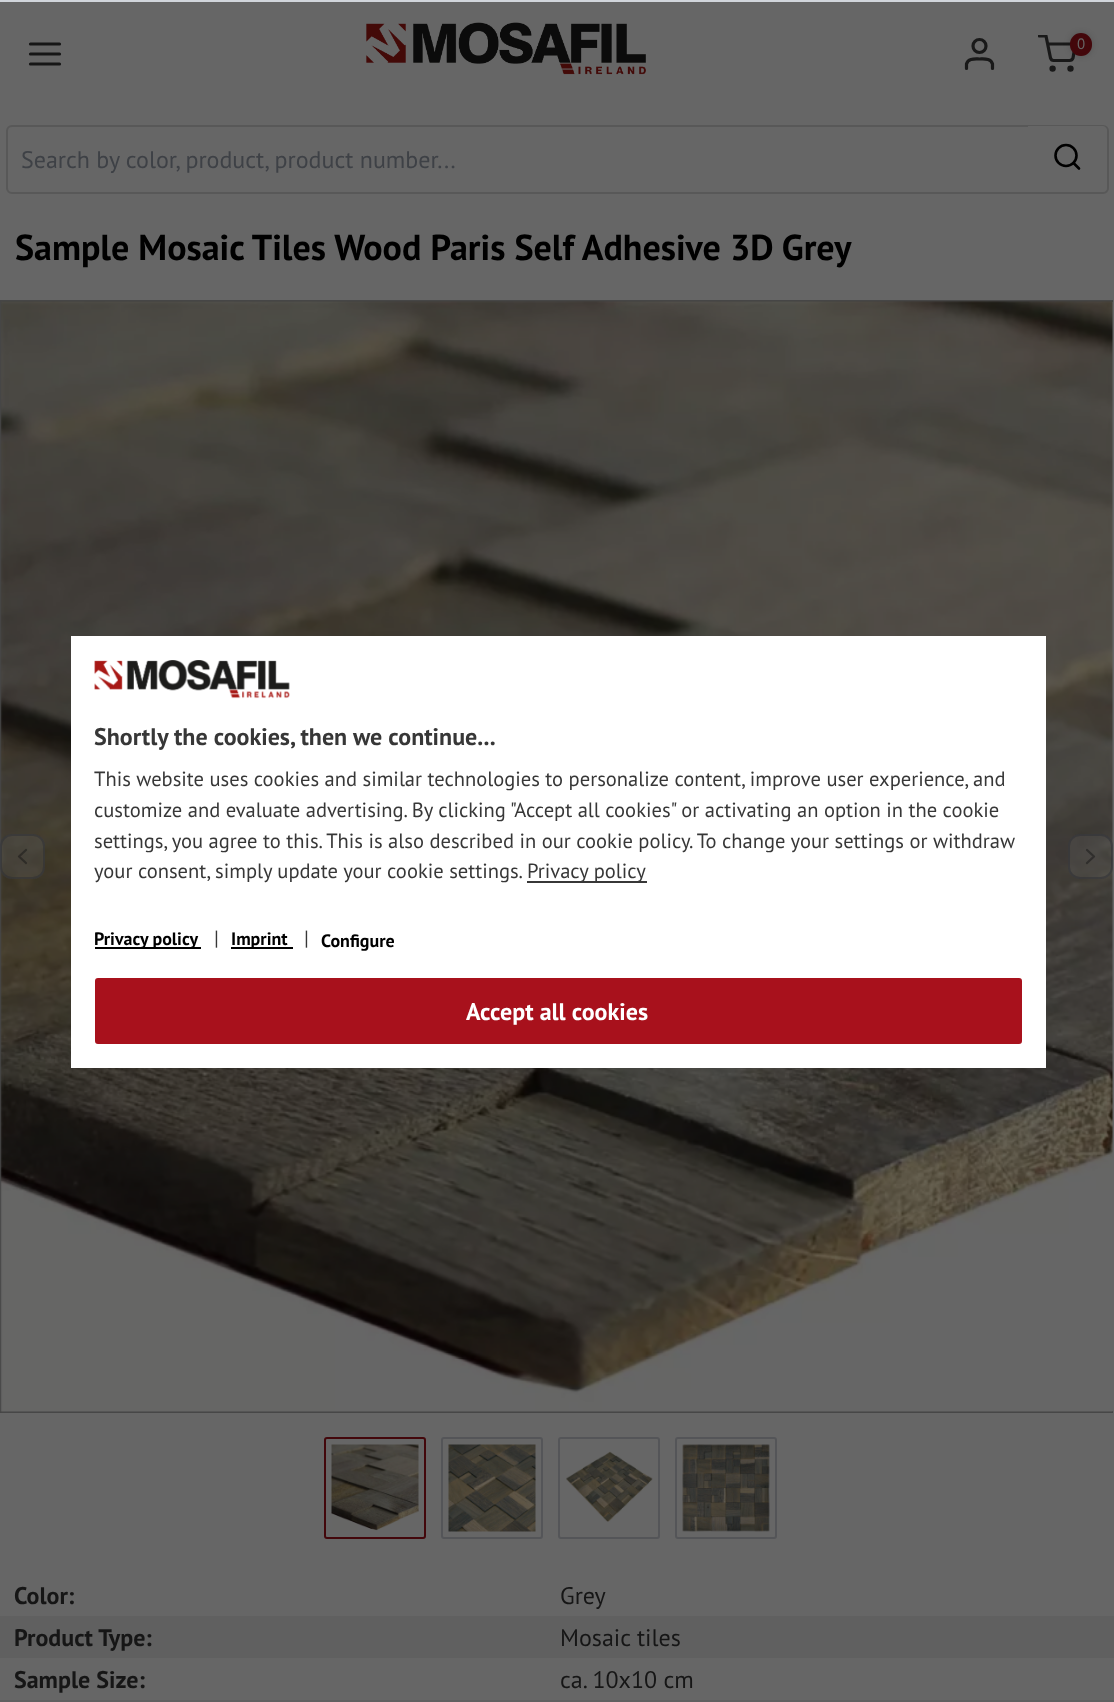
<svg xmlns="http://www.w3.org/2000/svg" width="1114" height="1702">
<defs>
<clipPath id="clip1"><rect x="1038" y="35" width="39" height="39"/></clipPath>
<clipPath id="clip2"><rect y="300" width="1113" height="1113"/></clipPath>
</defs>
<rect width="100%" height="100%" fill="#666"/>
<path d="M30.5 54h29m-29-10h29m-29 20h29" fill="none" stroke="#161616" stroke-width="3.2" stroke-linecap="round" stroke-linejoin="round"/>
<image x="366" y="22" width="280" height="53" href="media/1.png"/>
<path d="M992.5 68.5v-4.5c-1.5-6-8.5-5-13-5c-4.5 0-11.5-1-13 5v4.5" fill="none" stroke="#191919" stroke-width="3.2" stroke-linecap="round" stroke-linejoin="round"/>
<circle cx="979.5" cy="46" r="6.5" fill="none" stroke="#191919" stroke-width="3.2"/>
<circle cx="1052.6" cy="68.6" r="1.6" fill="none" stroke="#191919" stroke-width="3.2"/>
<circle cx="1070.5" cy="68.6" r="1.6" fill="none" stroke="#191919" stroke-width="3.2"/>
<g clip-path="url(#clip1)">
<path d="M1039.5 36h6.5l4.5 22c.5 1.5 1.5 2.5 3 2.5h16c1.5 0 3-1 3.5-2.5l2.5-14h-27.5" fill="none" stroke="#191919" stroke-width="3.2" stroke-linecap="round" stroke-linejoin="round"/>
</g>
<rect x="1070" y="33" width="22" height="23" rx="11" fill="#0000002b" filter="blur(3px)"/>
<rect x="1071" y="34" width="20" height="21" rx="10" fill="#43070b" stroke="#43070b" stroke-width="2"/>
<text x="1077" y="49" style="font-family:PT Sans;font-size:15px;fill:#666">0</text>
<rect x="7" y="126" width="1101" height="67" rx="5" fill="none" stroke="#585858" stroke-width="2"/>
<text x="21" y="168" style="font-family:PT Sans;font-size:24px;fill:#3e4146">Search by color, product, product number...</text>
<path d="M1028 126h74c3 0 5 2 5 5v56c0 3-2 5-5 5h-74z" fill="#666"/>
<circle cx="1066" cy="155.5" r="10.5" fill="none" stroke="#000" stroke-width="2.6"/>
<path d="M1079 168.5l-5.5-5.5" fill="none" stroke="#000" stroke-width="2.6" stroke-linecap="round" stroke-linejoin="round"/>
<text x="15" y="260" style="font-family:PT Sans;font-size:36px;font-weight:bold;fill:#000">Sample Mosaic Tiles Wood Paris Self Adhesive 3D Grey</text>
<g clip-path="url(#clip2)">
<rect x="1" y="301" width="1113" height="1111" fill="none" stroke="#464646" stroke-width="2"/>
</g>
<image x="0" y="301" width="1113" height="1112" href="media/2.png"/>
<rect y="834" width="45" height="45" rx="12" fill="#66666640"/>
<rect x="1" y="835" width="43" height="43" rx="11" fill="none" stroke="#2b2e3380" stroke-width="2"/>
<path d="M26 863l-7-6.5l7-6.5" fill="none" stroke="#16161680" stroke-width="2.2" stroke-linecap="round" stroke-linejoin="round"/>
<rect x="1068" y="834" width="45" height="45" rx="12" fill="#66666640"/>
<rect x="1069" y="835" width="43" height="43" rx="11" fill="none" stroke="#2b2e3380" stroke-width="2"/>
<path d="M1087 863l7-6.5l-7-6.5" fill="none" stroke="#16161680" stroke-width="2.2" stroke-linecap="round" stroke-linejoin="round"/>
<rect x="325" y="1438" width="100" height="100" rx="2" fill="none" stroke="#43070b" stroke-width="2"/>
<image x="331" y="1444" width="88" height="87" href="media/3.png"/>
<rect x="442" y="1438" width="100" height="100" rx="2" fill="none" stroke="#545558" stroke-width="2"/>
<image x="448" y="1444" width="88" height="88" href="media/4.png"/>
<rect x="559" y="1438" width="100" height="100" rx="2" fill="none" stroke="#545558" stroke-width="2"/>
<image x="566" y="1451" width="87" height="71" href="media/5.png"/>
<rect x="676" y="1438" width="100" height="100" rx="2" fill="none" stroke="#545558" stroke-width="2"/>
<image x="682" y="1444" width="88" height="88" href="media/6.png"/>
<text x="14" y="1604" style="font-family:PT Sans;font-size:24px;font-weight:bold;fill:#161616">Color:</text>
<text x="560" y="1604" style="font-family:PT Sans;font-size:24px;fill:#161616">Grey</text>
<rect y="1616" width="1114" height="42" fill="#606060"/>
<text x="14" y="1646" style="font-family:PT Sans;font-size:24px;font-weight:bold;fill:#161616">Product Type:</text>
<text x="560" y="1646" style="font-family:PT Sans;font-size:24px;fill:#161616">Mosaic tiles</text>
<text x="14" y="1688" style="font-family:PT Sans;font-size:24px;font-weight:bold;fill:#161616">Sample Size:</text>
<text x="560" y="1688" style="font-family:PT Sans;font-size:24px;fill:#161616">ca. 10x10 cm</text>
<rect y="1700" width="1114" height="2" fill="#606060"/>
<rect width="1114" height="2" fill="#d1d5db"/>
<rect x="71" y="636" width="975" height="432" fill="#fff"/>
<image x="94" y="660" width="196" height="39" href="media/7.png"/>
<text x="94" y="745" style="font-family:PT Sans;font-size:24px;font-weight:bold;fill:#373737">Shortly the cookies, then we continue...</text>
<text x="94" y="786" style="font-family:PT Sans;font-size:20.55px;fill:#373737">This website uses cookies and similar technologies to personalize content, improve user experience, and</text>
<text x="94" y="817" style="font-family:PT Sans;font-size:20.55px;fill:#373737">customize and evaluate advertising. By clicking "Accept all cookies" or activating an option in the cookie</text>
<text x="94" y="848" style="font-family:PT Sans;font-size:20.55px;fill:#373737">settings, you agree to this. This is also described in our cookie policy. To change your settings or withdraw</text>
<text x="94" y="878" style="font-family:PT Sans;font-size:20.55px;fill:#373737">your consent, simply update your cookie settings.</text>
<rect x="527" y="881" width="120" height="2" fill="#373737"/>
<text x="527" y="878" style="font-family:PT Sans;font-size:20.55px;fill:#373737">Privacy policy</text>
<rect x="95" y="947" width="106" height="2" fill="#000"/>
<text x="94" y="945" style="font-family:PT Sans;font-size:18px;font-weight:bold;fill:#000">Privacy policy</text>
<text x="214" y="945" style="font-family:PT Sans;font-size:20.55px;fill:#373737">|</text>
<rect x="231" y="947" width="62" height="2" fill="#000"/>
<text x="231" y="945" style="font-family:PT Sans;font-size:18px;font-weight:bold;fill:#000">Imprint</text>
<text x="304" y="945" style="font-family:PT Sans;font-size:20.55px;fill:#373737">|</text>
<text x="321" y="947" style="font-family:PT Sans;font-size:18px;font-weight:bold;fill:#000">Configure</text>
<rect x="96" y="979" width="925" height="64" rx="2" fill="#a8111c" stroke="#a8111c" stroke-width="2"/>
<text x="466" y="1020" style="font-family:PT Sans;font-size:24px;font-weight:bold;fill:#fff">Accept all cookies</text>
</svg>
